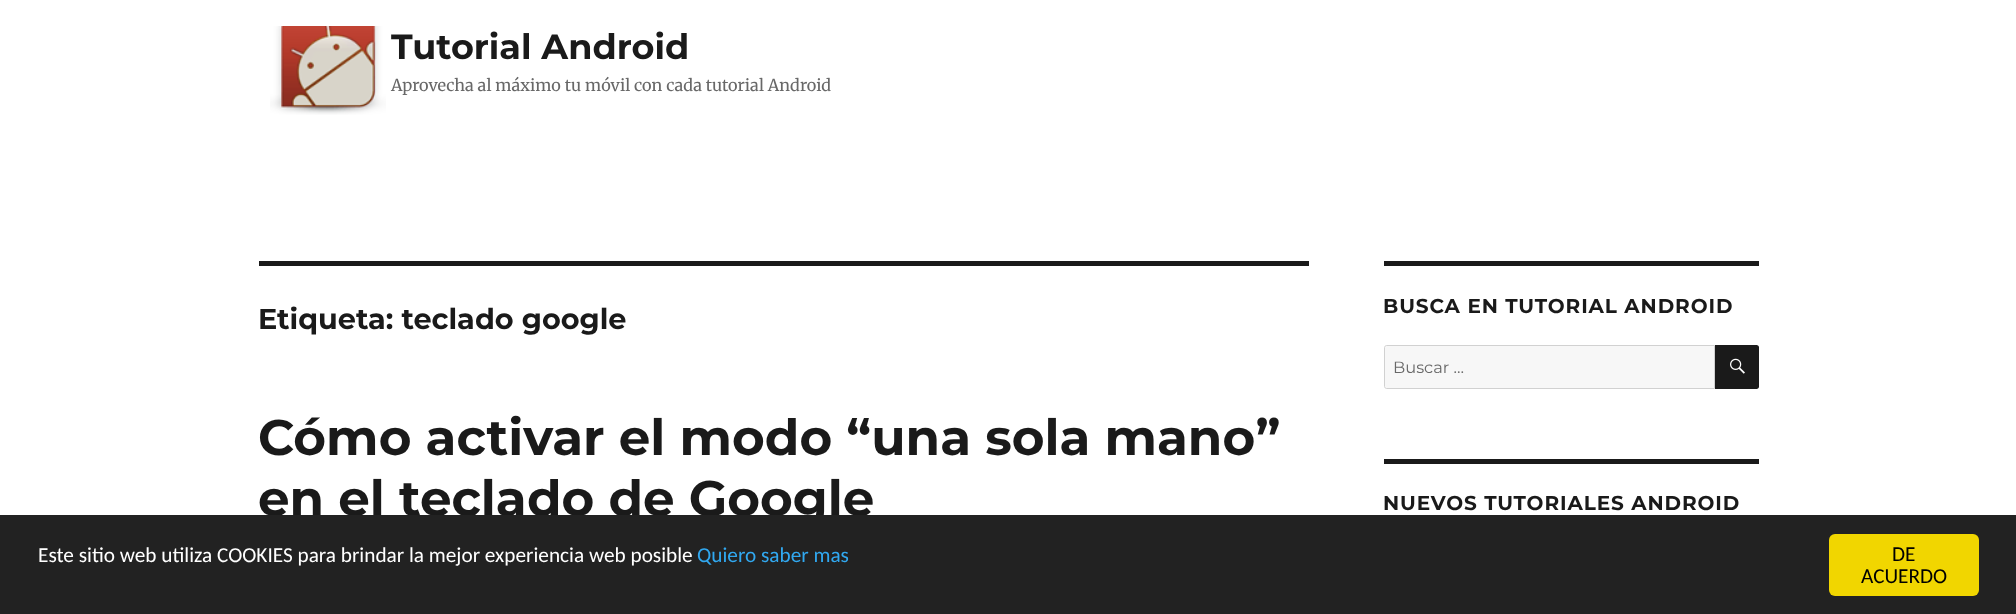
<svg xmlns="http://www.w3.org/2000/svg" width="2016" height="614">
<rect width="100%" height="100%" fill="#fff"/>
<image x="270" y="26" width="116" height="89" href="media/1.png"/>
<text x="391" y="59" style="font-family:Montserrat;font-size:35px;font-weight:bold;fill:#1a1a1a">Tutorial Android</text>
<text x="391" y="91" style="font-family:Merriweather;font-size:16.25px;fill:#686868">Aprovecha al máximo tu móvil con cada tutorial Android</text>
<rect x="259" y="261" width="1050" height="5" fill="#1a1a1a"/>
<text x="258" y="329" style="font-family:Montserrat;font-size:28.75px;font-weight:bold;fill:#1a1a1a">Etiqueta: teclado google</text>
<text x="258" y="455" style="font-family:Montserrat;font-size:50px;font-weight:bold;fill:#1a1a1a">Cómo activar el modo “una sola mano”</text>
<text x="258" y="516" style="font-family:Montserrat;font-size:50px;font-weight:bold;fill:#1a1a1a">en el teclado de Google</text>
<rect x="1384" y="261" width="375" height="5" fill="#1a1a1a"/>
<text x="1383" y="313" style="font-family:Montserrat;font-size:20px;font-weight:bold;letter-spacing:0.9px;fill:#1a1a1a">BUSCA EN TUTORIAL ANDROID</text>
<path d="M1386.5 345.5h328v43h-328c-1 0-2-1-2-2v-39c0-1 1-2 2-2z" fill="#f7f7f7" stroke="#d1d1d1"/>
<text x="1393" y="373" style="font-family:Montserrat;font-size:16.25px;fill:#686868">Buscar …</text>
<path d="M1715 345h41.5c1.5 0 2.5 1 2.5 2.5v39c0 1.5-1 2.5-2.5 2.5h-41.5z" fill="#1a1a1a"/>
<image x="1730" y="358" width="15" height="16" href="media/2.png"/>
<rect x="1384" y="459" width="375" height="5" fill="#1a1a1a"/>
<text x="1383" y="510" style="font-family:Montserrat;font-size:20px;font-weight:bold;letter-spacing:0.9px;fill:#1a1a1a">NUEVOS TUTORIALES ANDROID</text>
<rect y="515" width="2016" height="99" fill="#222"/>
<text x="38" y="562" style="font-family:Carlito;font-size:21.25px;fill:#fff">Este sitio web utiliza COOKIES para brindar la mejor experiencia web posible</text>
<text x="697" y="562" style="font-family:Carlito;font-size:21.25px;fill:#31a8f0">Quiero saber mas</text>
<rect x="1829" y="534" width="150" height="62" rx="6" fill="#f1d600"/>
<text x="1892" y="561" style="font-family:Carlito;font-size:21.25px;fill:#000">DE</text>
<text x="1861" y="583" style="font-family:Carlito;font-size:21.25px;fill:#000">ACUERDO</text>
</svg>
